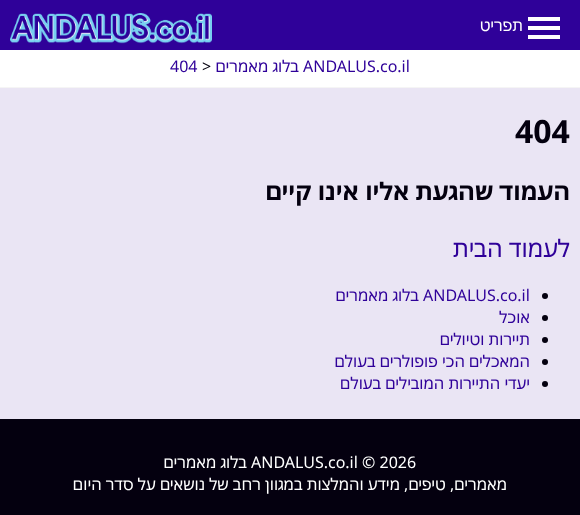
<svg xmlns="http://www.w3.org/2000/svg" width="580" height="515">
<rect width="100%" height="100%" fill="#eae5f4"/>
<rect width="580" height="50" fill="#2f0199"/>
<rect x="528" y="17" width="32" height="4" fill="#fff"/>
<rect x="528" y="26" width="32" height="4" fill="#fff"/>
<rect x="528" y="35" width="32" height="4" fill="#fff"/>
<text x="523" y="31" style="font-family:Noto Sans Hebrew;font-size:16px;direction:rtl;fill:#fff">תפריט</text>
<image x="10" y="13" width="202" height="31" href="media/1.png"/>
<rect y="50" width="580" height="37" fill="#fff"/>
<rect y="87" width="580" height="1" fill="#f5f5f5"/>
<text x="303" y="72" style="font-family:Noto Sans Hebrew;font-size:16px;fill:#2f0199">ANDALUS.co.il</text>
<text x="299" y="72" style="font-family:Noto Sans Hebrew;font-size:16px;direction:rtl;fill:#2f0199">בלוג מאמרים</text>
<text x="202" y="72" style="font-family:Noto Sans Hebrew;font-size:16px;fill:#04000f">&gt;</text>
<text x="170" y="72" style="font-family:Noto Sans Hebrew;font-size:16px;fill:#2f0199">404</text>
<text x="515" y="143" style="font-family:Noto Sans Hebrew;font-size:32px;font-weight:bold;fill:#04000f">404</text>
<text x="570" y="200" style="font-family:Noto Sans Hebrew;font-size:24px;font-weight:bold;direction:rtl;fill:#04000f">העמוד שהגעת אליו אינו קיים</text>
<text x="570" y="257" style="font-family:Noto Sans Hebrew;font-size:24px;direction:rtl;fill:#2f0199">לעמוד הבית</text>
<circle cx="545" cy="296" r="3" fill="#04000f"/>
<text x="423" y="301" style="font-family:Noto Sans Hebrew;font-size:16px;fill:#2f0199">ANDALUS.co.il</text>
<text x="419" y="301" style="font-family:Noto Sans Hebrew;font-size:16px;direction:rtl;fill:#2f0199">בלוג מאמרים</text>
<circle cx="545" cy="318" r="3" fill="#04000f"/>
<text x="530" y="323" style="font-family:Noto Sans Hebrew;font-size:16px;direction:rtl;fill:#2f0199">אוכל</text>
<circle cx="545" cy="340" r="3" fill="#04000f"/>
<text x="530" y="345" style="font-family:Noto Sans Hebrew;font-size:16px;direction:rtl;fill:#2f0199">תיירות וטיולים</text>
<circle cx="545" cy="362" r="3" fill="#04000f"/>
<text x="530" y="367" style="font-family:Noto Sans Hebrew;font-size:16px;direction:rtl;fill:#2f0199">המאכלים הכי פופולרים בעולם</text>
<circle cx="545" cy="384" r="3" fill="#04000f"/>
<text x="530" y="389" style="font-family:Noto Sans Hebrew;font-size:16px;direction:rtl;fill:#2f0199">יעדי התיירות המובילים בעולם</text>
<rect y="419" width="580" height="96" fill="#04000f"/>
<text x="251" y="468" style="font-family:Noto Sans Hebrew;font-size:16px;fill:#fff">ANDALUS.co.il © 2026</text>
<text x="247" y="468" style="font-family:Noto Sans Hebrew;font-size:16px;direction:rtl;fill:#fff">בלוג מאמרים</text>
<text x="507" y="490" style="font-family:Noto Sans Hebrew;font-size:16px;direction:rtl;fill:#fff">מאמרים, טיפים, מידע והמלצות במגוון רחב של נושאים על סדר היום</text>
</svg>
